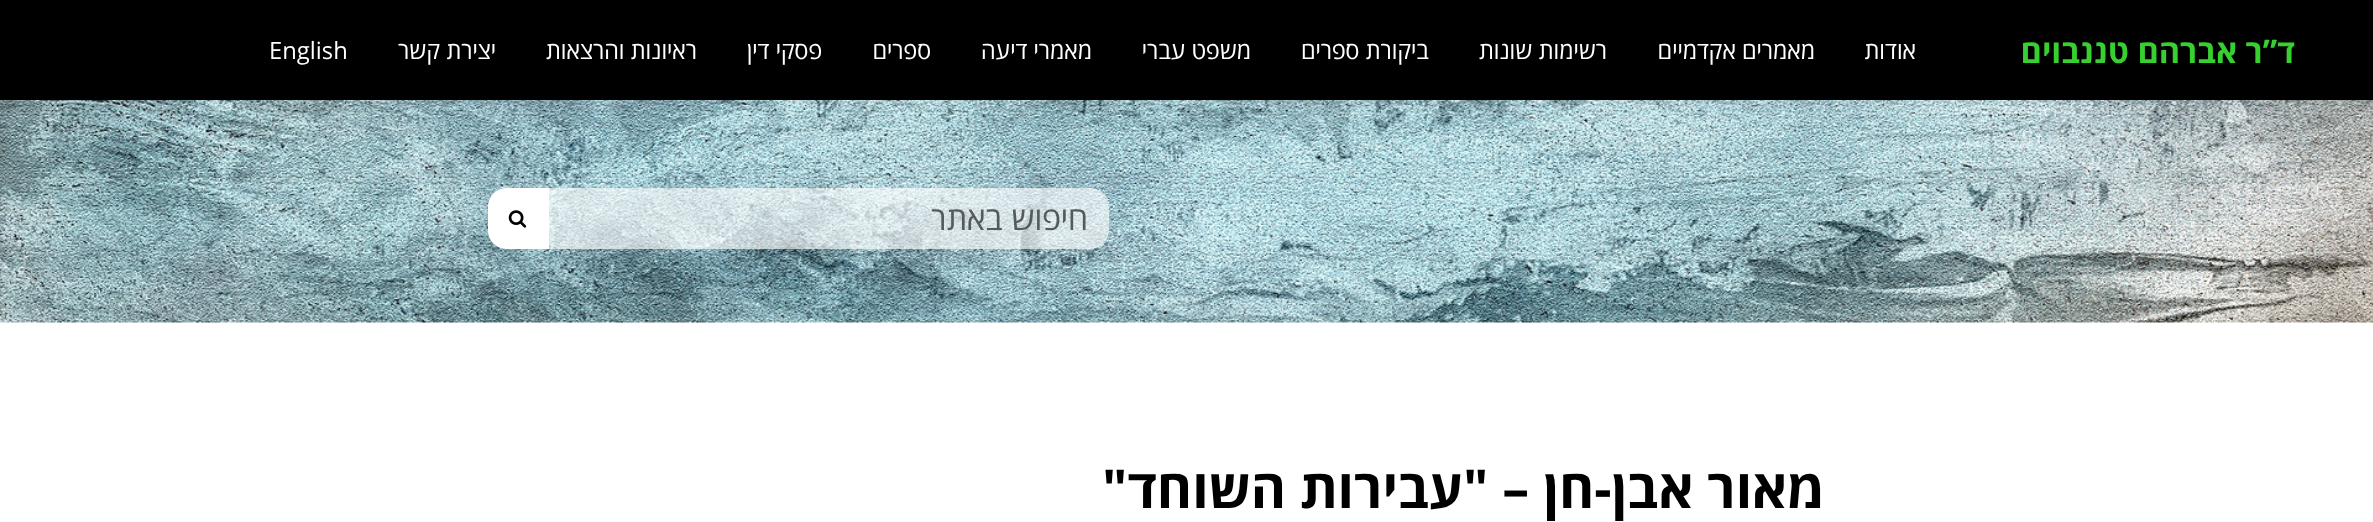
<svg xmlns="http://www.w3.org/2000/svg" width="2373" height="522">
<rect width="100%" height="100%" fill="#fff"/>
<rect width="2373" height="100" fill="#000"/>
<text x="2295" y="63" style="font-family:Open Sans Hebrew;font-size:32.5px;font-weight:bold;direction:rtl;fill:#38cf30">ד”ר אברהם טננבוים</text>
<text x="1916" y="59" style="font-family:Open Sans Hebrew;font-size:23.75px;direction:rtl;fill:#fff">אודות</text>
<text x="1815" y="59" style="font-family:Open Sans Hebrew;font-size:23.75px;direction:rtl;fill:#fff">מאמרים אקדמיים</text>
<text x="1607" y="59" style="font-family:Open Sans Hebrew;font-size:23.75px;direction:rtl;fill:#fff">רשימות שונות</text>
<text x="1429" y="59" style="font-family:Open Sans Hebrew;font-size:23.75px;direction:rtl;fill:#fff">ביקורת ספרים</text>
<text x="1251" y="59" style="font-family:Open Sans Hebrew;font-size:23.75px;direction:rtl;fill:#fff">משפט עברי</text>
<text x="1092" y="59" style="font-family:Open Sans Hebrew;font-size:23.75px;direction:rtl;fill:#fff">מאמרי דיעה</text>
<text x="931" y="59" style="font-family:Open Sans Hebrew;font-size:23.75px;direction:rtl;fill:#fff">ספרים</text>
<text x="822" y="59" style="font-family:Open Sans Hebrew;font-size:23.75px;direction:rtl;fill:#fff">פסקי דין</text>
<text x="697" y="59" style="font-family:Open Sans Hebrew;font-size:23.75px;direction:rtl;fill:#fff">ראיונות והרצאות</text>
<text x="496" y="59" style="font-family:Open Sans Hebrew;font-size:23.75px;direction:rtl;fill:#fff">יצירת קשר</text>
<text x="269" y="59" style="font-family:Open Sans Hebrew;font-size:23.75px;fill:#fff">English</text>
<image x="0" y="100" width="2373" height="223" href="media/1.png"/>
<rect x="488" y="188" width="621" height="61" rx="19" fill="#ffffffa3"/>
<text x="1088" y="230" style="font-family:Open Sans Hebrew;font-size:32.5px;direction:rtl;fill:#555a5b">חיפוש באתר</text>
<path d="M507 188h42v61h-42c-10.5 0-19-8.5-19-19v-23c0-10.5 8.5-19 19-19z" fill="#fff"/>
<image x="508" y="210" width="19" height="18" href="media/2.png"/>
<text x="1824" y="508" style="font-family:Open Sans Hebrew;font-size:53.75px;font-weight:bold;direction:rtl;fill:#000">מאור אבן-חן – "עבירות השוחד"</text>
</svg>
